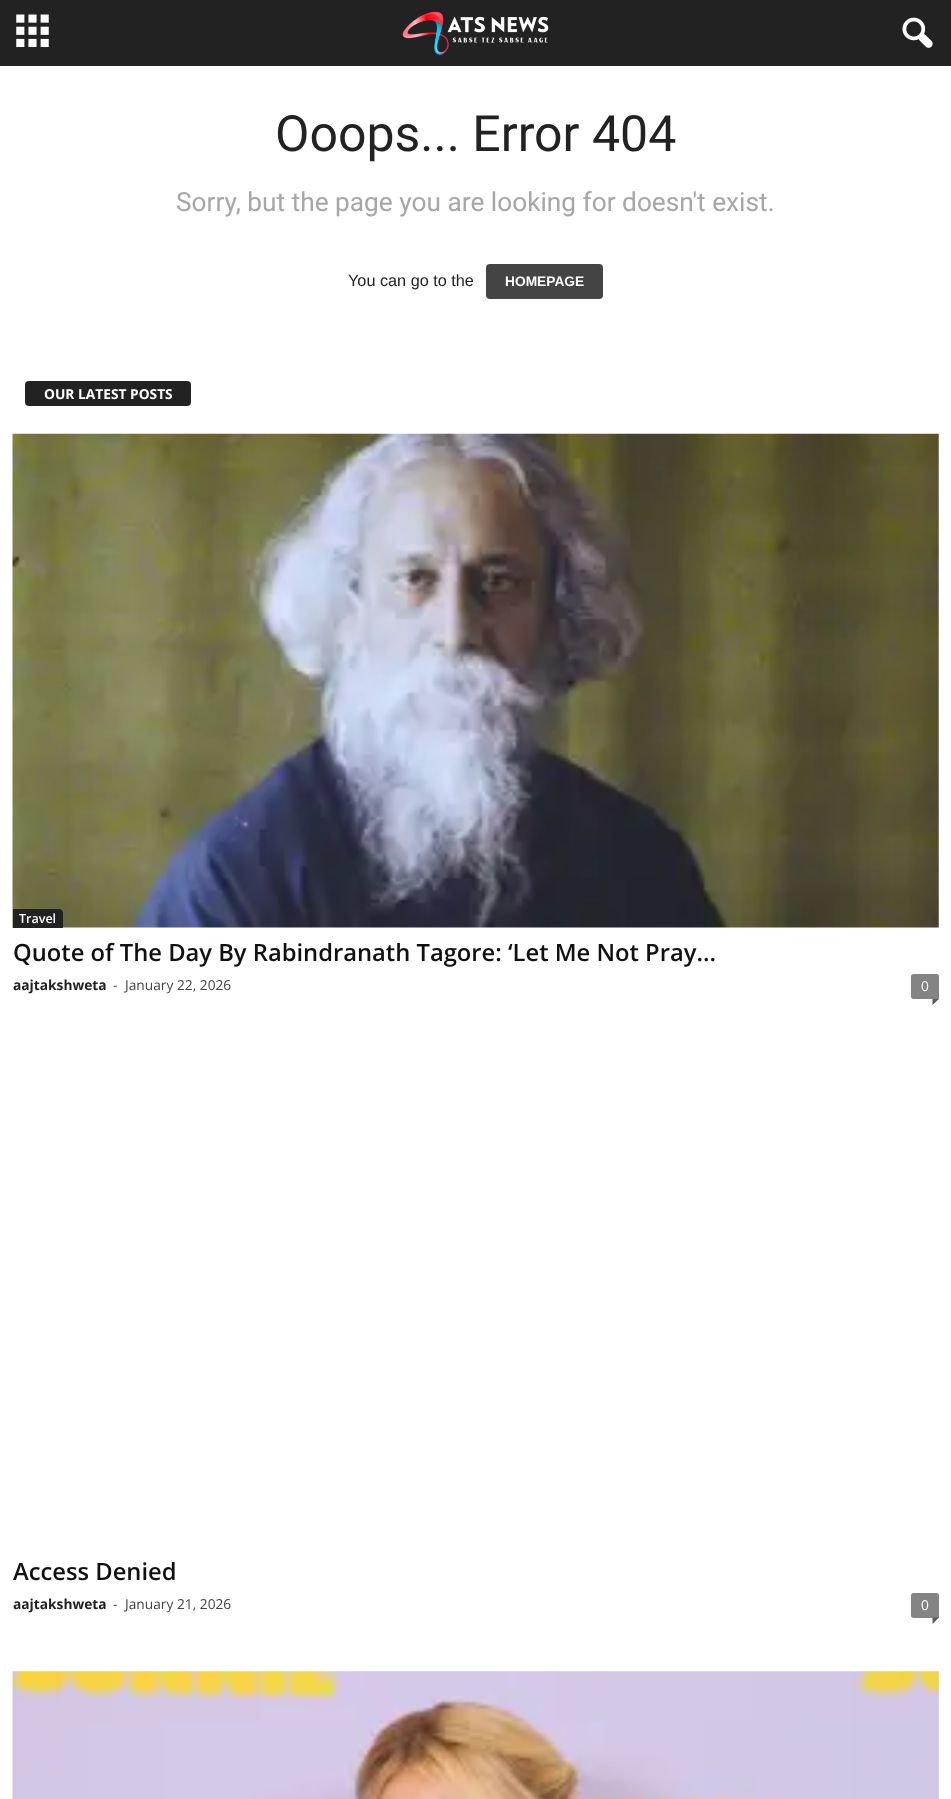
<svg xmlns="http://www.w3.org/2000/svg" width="951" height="1799">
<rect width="100%" height="100%" fill="#fff"/>
<rect width="951" height="66" fill="#222"/>
<image x="16" y="14" width="33" height="34" href="media/1.png"/>
<image x="402" y="11" width="147" height="44" href="media/2.png"/>
<image x="902" y="17" width="31" height="31" href="media/3.png"/>
<text x="275" y="151" style="font-family:Roboto;font-size:50px;fill:#222">Ooops... Error 404</text>
<text x="176" y="211" style="font-family:Roboto;font-size:26.25px;fill:#a6a6a6">Sorry, but the page you are looking for doesn't exist.</text>
<text x="348" y="286" style="font-family:Liberation Sans;font-size:16.25px;fill:#222">You can go to the</text>
<rect x="486" y="264" width="117" height="35" rx="4" fill="#444"/>
<text x="505" y="286" style="font-family:Liberation Sans;font-size:13.75px;font-weight:bold;fill:#fff">HOMEPAGE</text>
<rect x="25" y="381" width="166" height="25" rx="4" fill="#222"/>
<text x="44" y="399" style="font-family:Open Sans;font-size:13.75px;font-weight:bold;fill:#fff">OUR LATEST POSTS</text>
<image x="12" y="433" width="927" height="495" href="media/4.png"/>
<path d="M13 909h46c2 0 4 2 4 4v15h-50z" fill="#222"/>
<text x="19" y="923" style="font-family:Open Sans;font-size:12.5px;font-weight:600;fill:#fff">Travel</text>
<text x="13" y="961" style="font-family:Open Sans;font-size:23.75px;font-weight:600;fill:#111">Quote of The Day By Rabindranath Tagore: ‘Let Me Not Pray...</text>
<text x="13" y="990" style="font-family:Open Sans;font-size:13.75px;font-weight:bold;fill:#222">aajtakshweta</text>
<text x="113" y="990" style="font-family:Open Sans;font-size:13.75px;fill:#444">-</text>
<text x="125" y="990" style="font-family:Open Sans;font-size:13.75px;fill:#444">January 22, 2026</text>
<path d="M913.5 974h23c1.5 0 2.5 1 2.5 2.5v22.5h-25.5c-1.5 0-2.5-1-2.5-2.5v-20c0-1.5 1-2.5 2.5-2.5z" fill="#848484"/>
<text x="921" y="991" style="font-family:Open Sans;font-size:13.75px;fill:#fff">0</text>
<path d="M932.5 999h6.5l-6.5 6z" fill="#5b5b5b"/>
<text x="13" y="1580" style="font-family:Open Sans;font-size:23.75px;font-weight:600;fill:#111">Access Denied</text>
<text x="13" y="1609" style="font-family:Open Sans;font-size:13.75px;font-weight:bold;fill:#222">aajtakshweta</text>
<text x="113" y="1609" style="font-family:Open Sans;font-size:13.75px;fill:#444">-</text>
<text x="125" y="1609" style="font-family:Open Sans;font-size:13.75px;fill:#444">January 21, 2026</text>
<path d="M913.5 1593h23c1.5 0 2.5 1 2.5 2.5v22.5h-25.5c-1.5 0-2.5-1-2.5-2.5v-20c0-1.5 1-2.5 2.5-2.5z" fill="#848484"/>
<text x="921" y="1610" style="font-family:Open Sans;font-size:13.75px;fill:#fff">0</text>
<path d="M932.5 1617.5h6.5l-6.5 6.5z" fill="#5b5b5b"/>
<image x="12" y="1671" width="927" height="128" href="media/5.png"/>
</svg>
